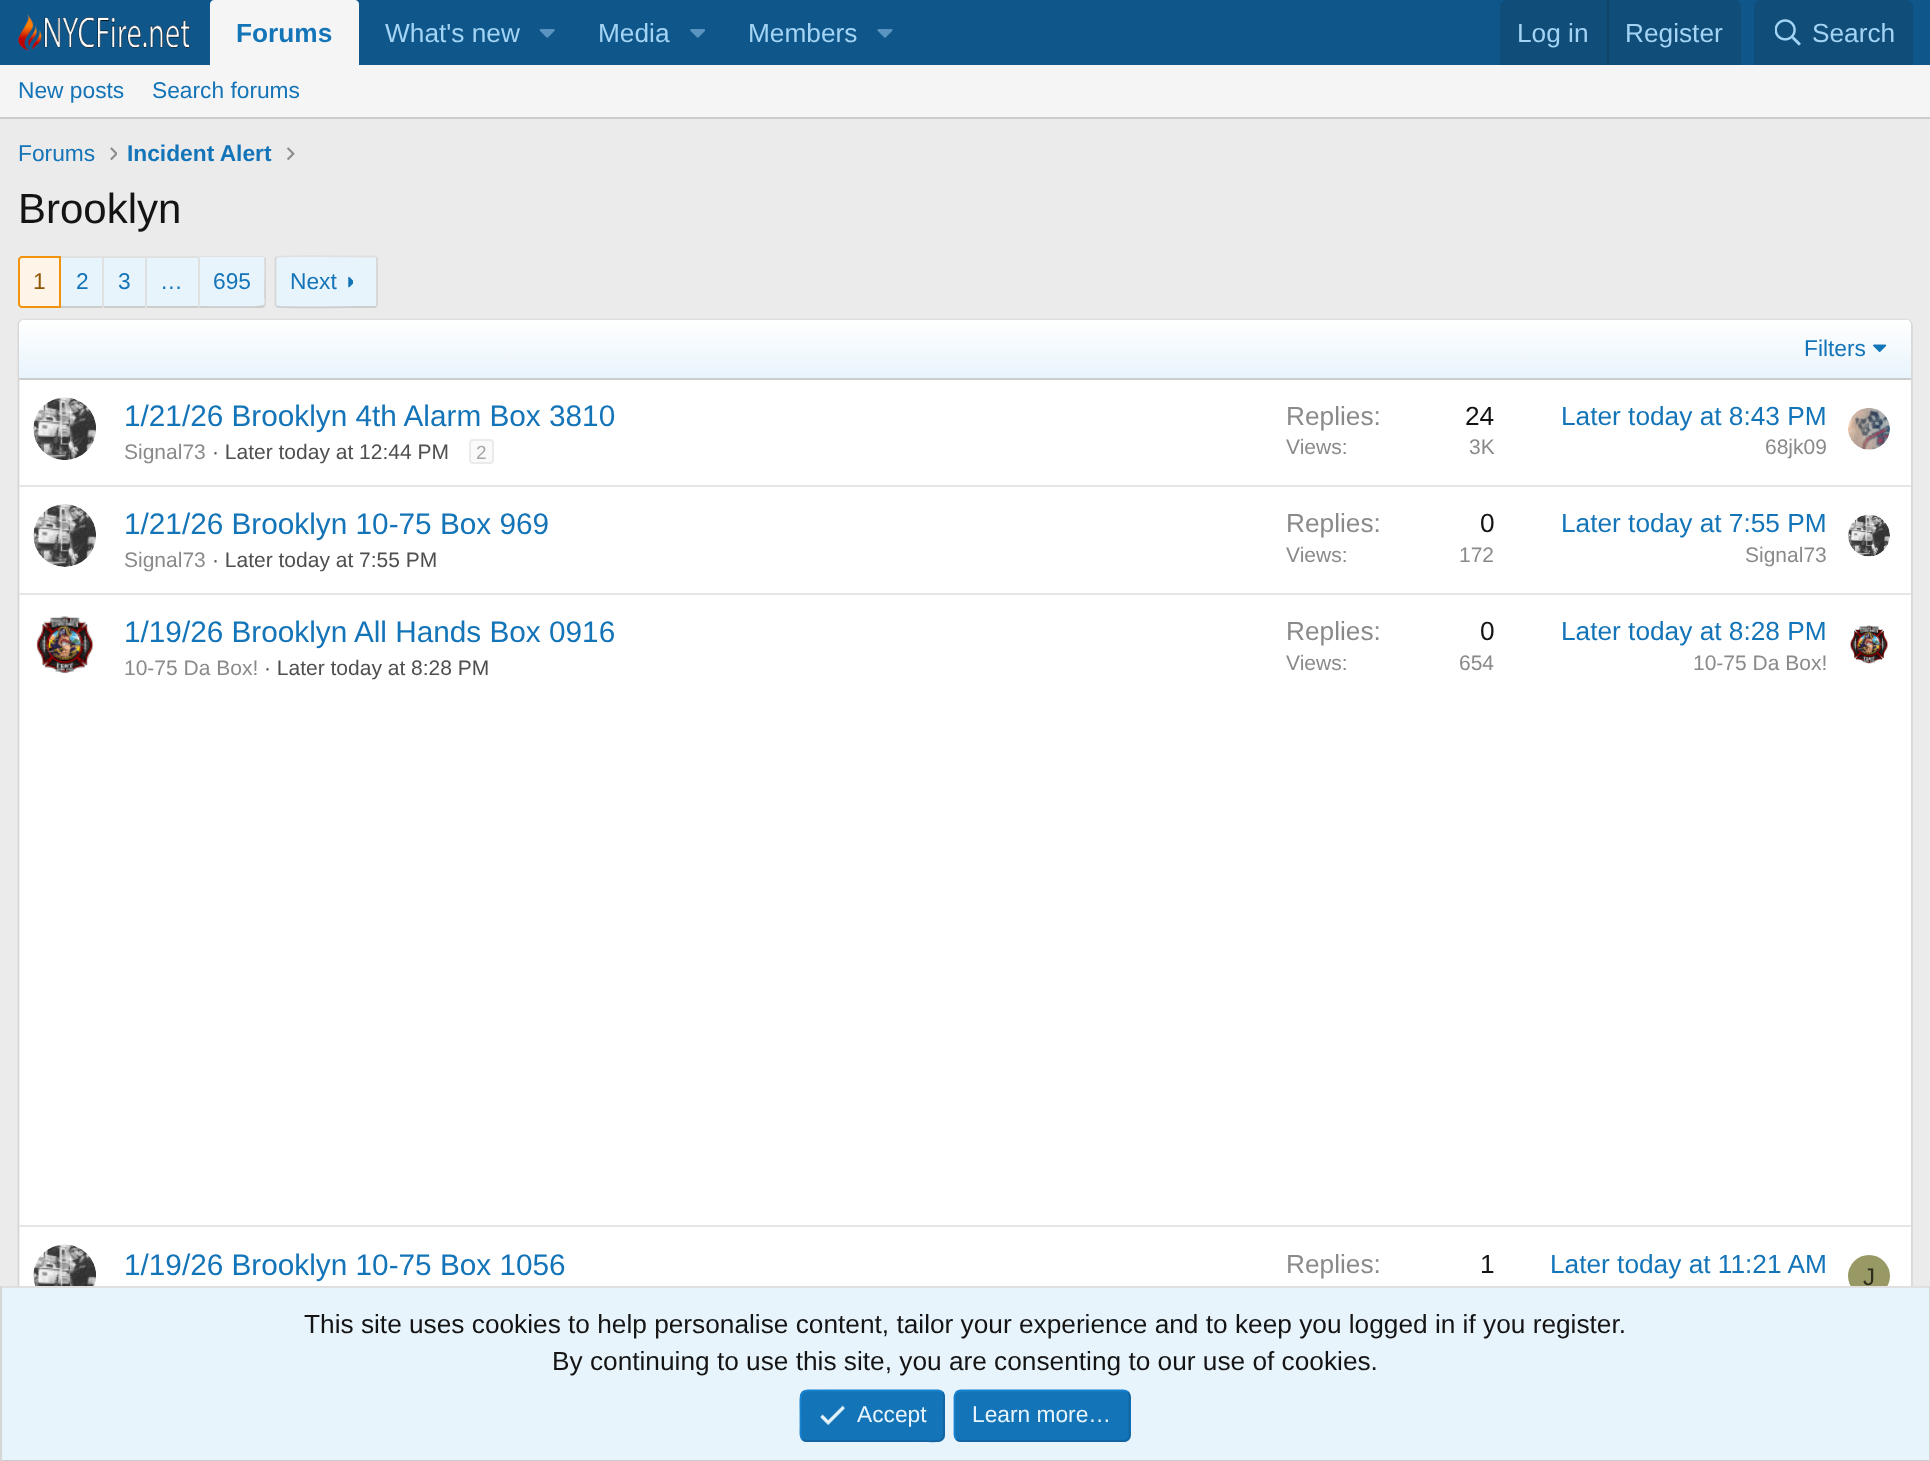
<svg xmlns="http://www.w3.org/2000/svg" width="1930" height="1461">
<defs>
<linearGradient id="g1" gradientUnits="userSpaceOnUse" x1="965" y1="378" x2="965" y2="320"><stop offset="0" stop-color="#e8f4fc"/><stop offset="1" stop-color="#fff"/></linearGradient>
</defs>
<rect width="100%" height="100%" fill="#ebebeb"/>
<rect width="1930" height="65" fill="#0f578a"/>
<image x="18" y="14" width="172" height="37" href="media/1.png"/>
<path d="M214 0h141c2 0 4 2 4 4v61h-149v-61c0-2 2-4 4-4z" fill="#f5f5f5"/>
<text x="236" y="42" style="font-family:Liberation Sans;font-size:26.25px;font-weight:bold;fill:#1474b8">Forums</text>
<text x="385" y="42" style="font-family:Liberation Sans;font-size:26.25px;fill:#a3d4f5">What's new</text>
<image x="539" y="29" width="16" height="9" href="media/2.png"/>
<text x="598" y="42" style="font-family:Liberation Sans;font-size:26.25px;fill:#a3d4f5">Media</text>
<image x="690" y="29" width="15" height="9" href="media/3.png"/>
<text x="748" y="42" style="font-family:Liberation Sans;font-size:26.25px;fill:#a3d4f5">Members</text>
<image x="877" y="29" width="16" height="9" href="media/4.png"/>
<path d="M1507 0h227c4 0 7 3 7 7v58h-241v-58c0-4 3-7 7-7z" fill="#104d78"/>
<text x="1517" y="42" style="font-family:Liberation Sans;font-size:26.25px;fill:#a3d4f5">Log in</text>
<rect x="1607" width="2" height="65" fill="#114469"/>
<text x="1625" y="42" style="font-family:Liberation Sans;font-size:26.25px;fill:#a3d4f5">Register</text>
<path d="M1761 0h145c4 0 7 3 7 7v58h-159v-58c0-4 3-7 7-7z" fill="#104d78"/>
<image x="1775" y="19" width="26" height="27" href="media/5.png"/>
<text x="1812" y="42" style="font-family:Liberation Sans;font-size:26.25px;fill:#a3d4f5">Search</text>
<rect y="65" width="1930" height="52" fill="#f5f5f5"/>
<rect y="117" width="1930" height="2" fill="#ccc"/>
<text x="18" y="98" style="font-family:Liberation Sans;font-size:22.75px;fill:#1474b8">New posts</text>
<text x="152" y="98" style="font-family:Liberation Sans;font-size:22.75px;fill:#1474b8">Search forums</text>
<text x="18" y="161" style="font-family:Liberation Sans;font-size:22.75px;fill:#1474b8">Forums</text>
<image x="110" y="147" width="7" height="13" href="media/6.png"/>
<text x="127" y="161" style="font-family:Liberation Sans;font-size:22.75px;font-weight:bold;fill:#1474b8">Incident Alert</text>
<image x="287" y="147" width="8" height="13" href="media/7.png"/>
<text x="18" y="223" style="font-family:Liberation Sans;font-size:42px;fill:#141414">Brooklyn</text>
<path d="M22 257h38v50h-38c-1.5 0-3-1.5-3-3v-44c0-1.5 1.5-3 3-3z" fill="#fef4e7" stroke="#f2930d" stroke-width="2"/>
<text x="33" y="289" style="font-family:Liberation Sans;font-size:22.75px;fill:#915808">1</text>
<rect x="61" y="258" width="41" height="48" fill="#e8f4fc"/>
<rect x="61" y="256" width="137" height="2" fill="#e0e0e0"/>
<rect x="61" y="306" width="137" height="2" fill="#ccc"/>
<text x="76" y="289" style="font-family:Liberation Sans;font-size:22.75px;fill:#1474b8">2</text>
<rect x="104" y="258" width="41" height="48" fill="#e8f4fc"/>
<rect x="102" y="256" width="2" height="52" fill="#e0e0e0"/>
<text x="118" y="289" style="font-family:Liberation Sans;font-size:22.75px;fill:#1474b8">3</text>
<rect x="147" y="258" width="51" height="48" fill="#e8f4fc"/>
<rect x="145" y="256" width="2" height="52" fill="#e0e0e0"/>
<text x="160" y="289" style="font-family:Liberation Sans;font-size:22.75px;fill:#1474b8">…</text>
<path d="M198 256h64c2 0 4 2 4 4v44c0 2-2 4-4 4h-64z" fill="#e8f4fc"/>
<path d="M200 257h62l2 1l1-1l-3-1h-64l2 2z" fill="#e0e0e0"/>
<path d="M265 257l1 2v45l-1 3l-2-2c3-2 1-5 1-9c0-4 1-36 0-38z" fill="#d6d6d6"/>
<path d="M198 308h64l3-1l-2-2c-1 2-56 1-63 1z" fill="#ccc"/>
<path d="M198 256v52l2-2v-48z" fill="#e0e0e0"/>
<text x="213" y="289" style="font-family:Liberation Sans;font-size:22.75px;fill:#1474b8">695</text>
<rect x="275" y="256" width="103" height="52" rx="4" fill="#e8f4fc"/>
<path d="M276.5 257h.5c2-1.5 73-.5 81.5-.5h16l2 .5" fill="none" stroke="#e0e0e0" stroke-width="1.8"/>
<path d="M376.5 257l.5 1.5v46.5l-.5 1.5" fill="none" stroke="#d6d6d6" stroke-width="1.8"/>
<path d="M376.5 306.5l-2 .5h-16c-8.5 0-79.5 1-81.5-.5h-.5" fill="none" stroke="#ccc" stroke-width="1.8"/>
<path d="M276.5 306.5l-1-1.5v-46.5l1-1.5" fill="none" stroke="#d6d6d6" stroke-width="1.8"/>
<text x="290" y="289" style="font-family:Liberation Sans;font-size:22.75px;fill:#1474b8">Next</text>
<image x="348" y="276" width="5" height="12" href="media/8.png"/>
<rect x="18" y="319" width="1895" height="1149" rx="7" fill="#fff"/>
<path d="M20 321c1.5-1 3-1.5 4.5-1.5h1881.5c1.5 0 3 .5 4 1.5" fill="none" stroke="#e0e0e0" stroke-width="1.8"/>
<path d="M1910 321c1 1.5 2 3 2 4.5v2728.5c0 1.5-1 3-2 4" fill="none" stroke="#d6d6d6" stroke-width="1.8"/>
<path d="M20 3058c-1-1-1.5-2.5-1.5-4v-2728.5c0-1.5 .5-3 1.5-4.5" fill="none" stroke="#d6d6d6" stroke-width="1.8"/>
<path d="M24 320h1882c3 0 5 2 5 5v53h-1892v-53c0-3 2-5 5-5z" fill="url(#g1)"/>
<rect x="19" y="378" width="1892" height="2" fill="#ccc"/>
<text x="1804" y="356" style="font-family:Liberation Sans;font-size:22.75px;fill:#1474b8">Filters</text>
<image x="1873" y="344" width="14" height="8" href="media/9.png"/>
<image x="33" y="397" width="63" height="63" href="media/10.png"/>
<text x="124" y="426" style="font-family:Liberation Sans;font-size:29.75px;fill:#1474b8">1/21/26 Brooklyn 4th Alarm Box 3810</text>
<text x="124" y="459" style="font-family:Liberation Sans;font-size:21px;fill:#8a8a8a">Signal73</text>
<text x="212" y="459" style="font-family:Liberation Sans;font-size:21px;fill:#4f4f4f">· Later today at 12:44 PM</text>
<rect x="470" y="440" width="23" height="23" rx="3" fill="#fafafa" stroke="#ebebeb" stroke-width="2"/>
<text x="476" y="459" style="font-family:Liberation Sans;font-size:19px;fill:#a7a7a7">2</text>
<text x="1286" y="425" style="font-family:Liberation Sans;font-size:26.25px;fill:#8a8a8a">Replies:</text>
<text x="1465" y="425" style="font-family:Liberation Sans;font-size:26.25px;fill:#141414">24</text>
<text x="1286" y="454" style="font-family:Liberation Sans;font-size:21px;fill:#8a8a8a">Views:</text>
<text x="1469" y="454" style="font-family:Liberation Sans;font-size:21px;fill:#8a8a8a">3K</text>
<text x="1561" y="425" style="font-family:Liberation Sans;font-size:26.25px;fill:#1474b8">Later today at 8:43 PM</text>
<text x="1765" y="454" style="font-family:Liberation Sans;font-size:21px;fill:#8a8a8a">68jk09</text>
<image x="1848" y="408" width="42" height="42" href="media/11.png"/>
<rect x="19" y="485" width="1892" height="2" fill="#e5e5e5"/>
<image x="33" y="504" width="63" height="63" href="media/12.png"/>
<text x="124" y="534" style="font-family:Liberation Sans;font-size:29.75px;fill:#1474b8">1/21/26 Brooklyn 10-75 Box 969</text>
<text x="124" y="567" style="font-family:Liberation Sans;font-size:21px;fill:#8a8a8a">Signal73</text>
<text x="212" y="567" style="font-family:Liberation Sans;font-size:21px;fill:#4f4f4f">· Later today at 7:55 PM</text>
<text x="1286" y="532" style="font-family:Liberation Sans;font-size:26.25px;fill:#8a8a8a">Replies:</text>
<text x="1480" y="532" style="font-family:Liberation Sans;font-size:26.25px;fill:#141414">0</text>
<text x="1286" y="562" style="font-family:Liberation Sans;font-size:21px;fill:#8a8a8a">Views:</text>
<text x="1459" y="562" style="font-family:Liberation Sans;font-size:21px;fill:#8a8a8a">172</text>
<text x="1561" y="532" style="font-family:Liberation Sans;font-size:26.25px;fill:#1474b8">Later today at 7:55 PM</text>
<text x="1745" y="562" style="font-family:Liberation Sans;font-size:21px;fill:#8a8a8a">Signal73</text>
<image x="1848" y="514" width="42" height="43" href="media/13.png"/>
<rect x="19" y="593" width="1892" height="2" fill="#e5e5e5"/>
<image x="36" y="616" width="58" height="58" href="media/14.png"/>
<text x="124" y="642" style="font-family:Liberation Sans;font-size:29.75px;fill:#1474b8">1/19/26 Brooklyn All Hands Box 0916</text>
<text x="124" y="675" style="font-family:Liberation Sans;font-size:21px;fill:#8a8a8a">10-75 Da Box!</text>
<text x="264" y="675" style="font-family:Liberation Sans;font-size:21px;fill:#4f4f4f">· Later today at 8:28 PM</text>
<text x="1286" y="640" style="font-family:Liberation Sans;font-size:26.25px;fill:#8a8a8a">Replies:</text>
<text x="1480" y="640" style="font-family:Liberation Sans;font-size:26.25px;fill:#141414">0</text>
<text x="1286" y="670" style="font-family:Liberation Sans;font-size:21px;fill:#8a8a8a">Views:</text>
<text x="1459" y="670" style="font-family:Liberation Sans;font-size:21px;fill:#8a8a8a">654</text>
<text x="1561" y="640" style="font-family:Liberation Sans;font-size:26.25px;fill:#1474b8">Later today at 8:28 PM</text>
<text x="1693" y="670" style="font-family:Liberation Sans;font-size:21px;fill:#8a8a8a">10-75 Da Box!</text>
<image x="1850" y="625" width="39" height="39" href="media/15.png"/>
<rect x="19" y="1225" width="1892" height="2" fill="#e5e5e5"/>
<image x="33" y="1244" width="63" height="42" href="media/16.png"/>
<text x="124" y="1275" style="font-family:Liberation Sans;font-size:29.75px;fill:#1474b8">1/19/26 Brooklyn 10-75 Box 1056</text>
<text x="1286" y="1273" style="font-family:Liberation Sans;font-size:26.25px;fill:#8a8a8a">Replies:</text>
<text x="1480" y="1273" style="font-family:Liberation Sans;font-size:26.25px;fill:#141414">1</text>
<text x="1550" y="1273" style="font-family:Liberation Sans;font-size:26.25px;fill:#1474b8">Later today at 11:21 AM</text>
<circle cx="1869" cy="1276" r="21" fill="#996"/>
<text x="1863" y="1285" style="font-family:Liberation Sans;font-size:24px;fill:#2e2e1f">J</text>
<rect x="2" y="1288" width="1927" height="172" fill="#e8f4fc"/>
<rect y="1286" width="1930" height="2" fill="#e0e0e0"/>
<rect x="1929" y="1286" width="1" height="175" fill="#d6d6d6"/>
<rect y="1460" width="1930" height="1" fill="#ccc"/>
<rect y="1286" width="2" height="175" fill="#d6d6d6"/>
<text x="304" y="1333" style="font-family:Liberation Sans;font-size:26.25px;fill:#141414">This site uses cookies to help personalise content, tailor your experience and to keep you logged in if you register.</text>
<text x="552" y="1370" style="font-family:Liberation Sans;font-size:26.25px;fill:#141414">By continuing to use this site, you are consenting to our use of cookies.</text>
<rect x="800" y="1390" width="145" height="52" rx="7" fill="#1474b8"/>
<path d="M942.5 1392c2.5 3 1.5 7.5 1.5 11v13c0 29.5 4 25-28 25h-109c-2 0-3.5-.5-4.5-1.5" fill="none" stroke="#1265a1" stroke-width="1.8"/>
<path d="M802.5 1439.5c-3-3-2-7.5-2-11v-12.5c0-30-3.5-25.5 28-25.5h109.5c1.5 0 3 .5 4.5 1.5" fill="none" stroke="#1782cf" stroke-width="1.8"/>
<image x="820" y="1405" width="25" height="20" href="media/17.png"/>
<text x="857" y="1422" style="font-family:Liberation Sans;font-size:22.75px;fill:#e8f4fc">Accept</text>
<rect x="954" y="1390" width="177" height="52" rx="7" fill="#1474b8"/>
<path d="M1128 1392c1 1.5 1.5 3 1.5 4.5v38.5c0 1.5-.5 3-1.5 4.5c-1.5 1-3 1.5-4.5 1.5h-162.5c-2 0-3.5-.5-4.5-1.5" fill="none" stroke="#1265a1" stroke-width="1.8"/>
<path d="M956.5 1439.5c-1-1.5-2-3-2-4.5v-38.5c0-1.5 1-3 2-4.5c1-1 2.5-1.5 4.5-1.5h162.5c1.5 0 3 .5 4.5 1.5" fill="none" stroke="#1782cf" stroke-width="1.8"/>
<text x="972" y="1422" style="font-family:Liberation Sans;font-size:22.75px;fill:#e8f4fc">Learn more…</text>
</svg>
